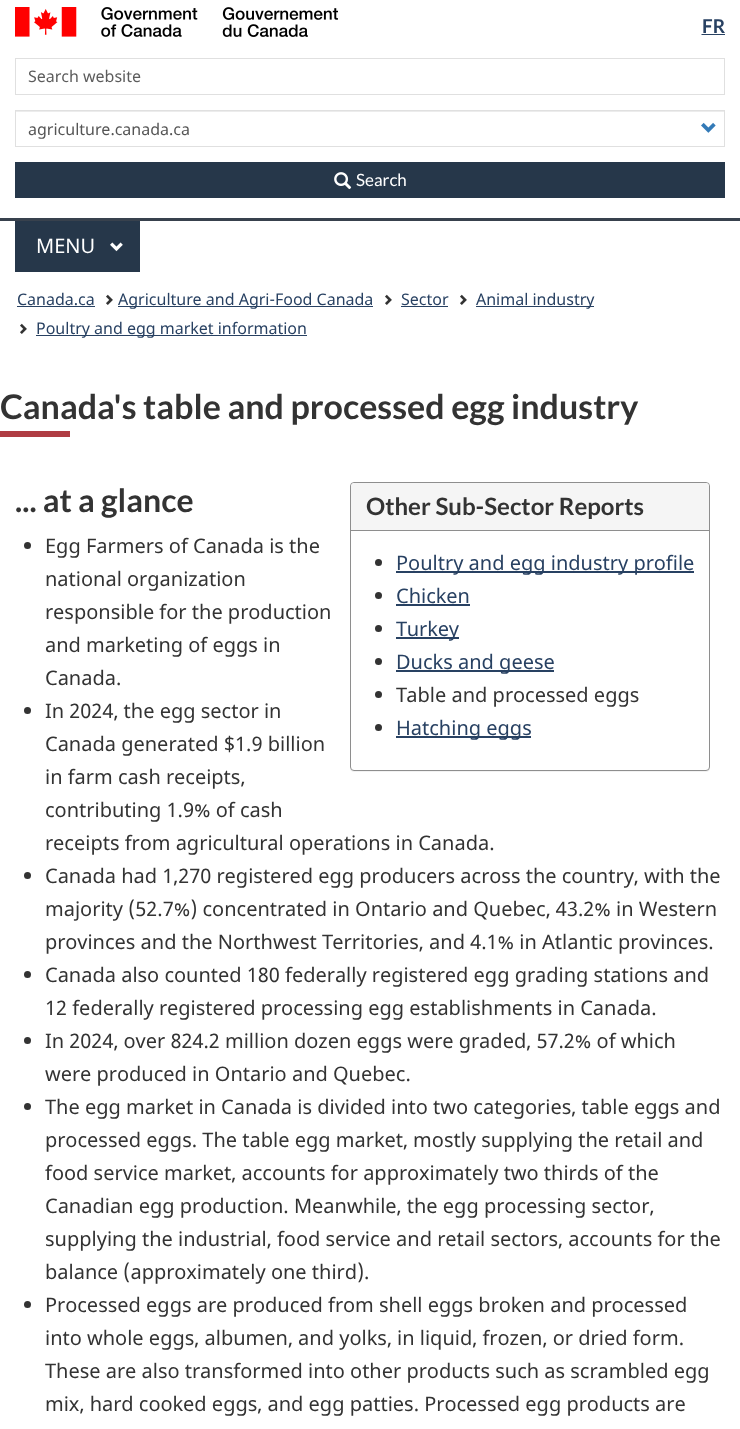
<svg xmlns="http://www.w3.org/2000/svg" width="740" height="1429">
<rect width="100%" height="100%" fill="#fff"/>
<image x="15" y="7" width="323" height="30" href="media/1.png"/>
<text x="702" y="33" style="font-family:Lato;font-size:19px;font-weight:bold;fill:#284162">FR</text>
<path d="M701.5 34.5h23.5" fill="none" stroke="#284162" stroke-dasharray="1 1"/>
<rect x="702" y="34" width="23" height="1" fill="#284162"/>
<rect x="15.5" y="58.5" width="709" height="36" fill="none" stroke="#e0e0e0"/>
<text x="28" y="82" style="font-family:Noto Sans;font-size:16px;fill:#5c5c5c">Search website</text>
<rect x="16" y="111" width="708" height="1" fill="#ececec"/>
<rect x="15.5" y="110.5" width="709" height="36" fill="none" stroke="#e0e0e0"/>
<text x="28" y="135" style="font-family:Noto Sans;font-size:16px;fill:#555">agriculture.canada.ca</text>
<image x="701" y="122" width="15" height="11" href="media/2.png"/>
<rect x="15" y="162" width="710" height="36" fill="#26374a"/>
<image x="334" y="172" width="18" height="18" href="media/3.png"/>
<text x="356" y="186" style="font-family:Lato;font-size:17px;fill:#fff">Search</text>
<rect y="218" width="740" height="3" fill="#38414d"/>
<rect x="15" y="221" width="125" height="51" fill="#26374a"/>
<text x="36" y="253" style="font-family:Noto Sans;font-size:20px;fill:#fff">MENU</text>
<image x="110" y="242" width="13" height="10" href="media/4.png"/>
<text x="17" y="305" style="font-family:Noto Sans;font-size:16px;fill:#284162">Canada.ca</text>
<rect x="17" y="306" width="78" height="1" fill="#284162"/>
<image x="106" y="294" width="7" height="11" href="media/5.png"/>
<rect x="118" y="306" width="255" height="1" fill="#284162"/>
<text x="118" y="305" style="font-family:Noto Sans;font-size:16px;fill:#284162">Agriculture and Agri-Food Canada</text>
<image x="385" y="294" width="7" height="11" href="media/5.png"/>
<text x="401" y="305" style="font-family:Noto Sans;font-size:16px;fill:#284162">Sector</text>
<rect x="401" y="306" width="47" height="1" fill="#284162"/>
<image x="460" y="294" width="7" height="11" href="media/5.png"/>
<rect x="476" y="306" width="118" height="1" fill="#284162"/>
<text x="476" y="305" style="font-family:Noto Sans;font-size:16px;fill:#284162">Animal industry</text>
<image x="20" y="323" width="7" height="11" href="media/5.png"/>
<rect x="36" y="335" width="271" height="1" fill="#284162"/>
<text x="36" y="334" style="font-family:Noto Sans;font-size:16px;fill:#284162">Poultry and egg market information</text>
<rect y="431" width="70" height="6" fill="#af3c43"/>
<text x="0" y="419" style="font-family:Lato;font-size:34px;font-weight:bold;fill:#333">Canada's table and processed egg industry</text>
<text x="15" y="512" style="font-family:Lato;font-size:32px;font-weight:bold;fill:#333">... at a glance</text>
<rect x="350" y="483" width="360" height="289" rx="4" fill="#0000000d" filter="blur(0.5px)"/>
<rect x="350.5" y="482.5" width="359" height="288" rx="3.5" fill="#fff" stroke="#8e8e8e"/>
<path d="M354 483h352c1.5 0 3 1.5 3 3v45h-358v-45c0-1.5 1.5-3 3-3z" fill="#f5f5f5"/>
<rect x="351" y="530" width="358" height="1" fill="#8e8e8e"/>
<text x="366" y="515" style="font-family:Lato;font-size:24px;font-weight:bold;fill:#333">Other Sub-Sector Reports</text>
<circle cx="378.5" cy="562.5" r="3.5" fill="#333"/>
<rect x="396" y="571" width="298" height="2" fill="#284162"/>
<text x="396" y="570" style="font-family:Noto Sans;font-size:20px;fill:#284162">Poultry and egg industry profile</text>
<circle cx="378.5" cy="595.5" r="3.5" fill="#333"/>
<text x="396" y="603" style="font-family:Noto Sans;font-size:20px;fill:#284162">Chicken</text>
<rect x="396" y="604" width="74" height="2" fill="#284162"/>
<circle cx="378.5" cy="628.5" r="3.5" fill="#333"/>
<rect x="396" y="637" width="63" height="2" fill="#284162"/>
<text x="396" y="636" style="font-family:Noto Sans;font-size:20px;fill:#284162">Turkey</text>
<circle cx="378.5" cy="661.5" r="3.5" fill="#333"/>
<rect x="396" y="670" width="158" height="2" fill="#284162"/>
<text x="396" y="669" style="font-family:Noto Sans;font-size:20px;fill:#284162">Ducks and geese</text>
<circle cx="378.5" cy="694.5" r="3.5" fill="#333"/>
<text x="396" y="702" style="font-family:Noto Sans;font-size:20px;fill:#333">Table and processed eggs</text>
<circle cx="378.5" cy="727.5" r="3.5" fill="#333"/>
<rect x="396" y="736" width="135" height="2" fill="#284162"/>
<text x="396" y="735" style="font-family:Noto Sans;font-size:20px;fill:#284162">Hatching eggs</text>
<circle cx="27.5" cy="545.5" r="3.5" fill="#333"/>
<text x="45" y="553" style="font-family:Noto Sans;font-size:20px;fill:#333">Egg Farmers of Canada is the</text>
<text x="45" y="586" style="font-family:Noto Sans;font-size:20px;fill:#333">national organization</text>
<text x="45" y="619" style="font-family:Noto Sans;font-size:20px;fill:#333">responsible for the production</text>
<text x="45" y="652" style="font-family:Noto Sans;font-size:20px;fill:#333">and marketing of eggs in</text>
<text x="45" y="685" style="font-family:Noto Sans;font-size:20px;fill:#333">Canada.</text>
<circle cx="27.5" cy="710.5" r="3.5" fill="#333"/>
<text x="45" y="718" style="font-family:Noto Sans;font-size:20px;fill:#333">In 2024, the egg sector in</text>
<text x="45" y="751" style="font-family:Noto Sans;font-size:20px;fill:#333">Canada generated $1.9 billion</text>
<text x="45" y="784" style="font-family:Noto Sans;font-size:20px;fill:#333">in farm cash receipts,</text>
<text x="45" y="817" style="font-family:Noto Sans;font-size:20px;fill:#333">contributing 1.9% of cash</text>
<text x="45" y="850" style="font-family:Noto Sans;font-size:20px;fill:#333">receipts from agricultural operations in Canada.</text>
<circle cx="27.5" cy="875.5" r="3.5" fill="#333"/>
<text x="45" y="883" style="font-family:Noto Sans;font-size:20px;fill:#333">Canada had 1,270 registered egg producers across the country, with the</text>
<text x="45" y="916" style="font-family:Noto Sans;font-size:20px;fill:#333">majority (52.7%) concentrated in Ontario and Quebec, 43.2% in Western</text>
<text x="45" y="949" style="font-family:Noto Sans;font-size:20px;fill:#333">provinces and the Northwest Territories, and 4.1% in Atlantic provinces.</text>
<circle cx="27.5" cy="974.5" r="3.5" fill="#333"/>
<text x="45" y="982" style="font-family:Noto Sans;font-size:20px;fill:#333">Canada also counted 180 federally registered egg grading stations and</text>
<text x="45" y="1015" style="font-family:Noto Sans;font-size:20px;fill:#333">12 federally registered processing egg establishments in Canada.</text>
<circle cx="27.5" cy="1040.5" r="3.5" fill="#333"/>
<text x="45" y="1048" style="font-family:Noto Sans;font-size:20px;fill:#333">In 2024, over 824.2 million dozen eggs were graded, 57.2% of which</text>
<text x="45" y="1081" style="font-family:Noto Sans;font-size:20px;fill:#333">were produced in Ontario and Quebec.</text>
<circle cx="27.5" cy="1106.5" r="3.5" fill="#333"/>
<text x="45" y="1114" style="font-family:Noto Sans;font-size:20px;fill:#333">The egg market in Canada is divided into two categories, table eggs and</text>
<text x="45" y="1147" style="font-family:Noto Sans;font-size:20px;fill:#333">processed eggs. The table egg market, mostly supplying the retail and</text>
<text x="45" y="1180" style="font-family:Noto Sans;font-size:20px;fill:#333">food service market, accounts for approximately two thirds of the</text>
<text x="45" y="1213" style="font-family:Noto Sans;font-size:20px;fill:#333">Canadian egg production. Meanwhile, the egg processing sector,</text>
<text x="45" y="1246" style="font-family:Noto Sans;font-size:20px;fill:#333">supplying the industrial, food service and retail sectors, accounts for the</text>
<text x="45" y="1279" style="font-family:Noto Sans;font-size:20px;fill:#333">balance (approximately one third).</text>
<circle cx="27.5" cy="1304.5" r="3.5" fill="#333"/>
<text x="45" y="1312" style="font-family:Noto Sans;font-size:20px;fill:#333">Processed eggs are produced from shell eggs broken and processed</text>
<text x="45" y="1345" style="font-family:Noto Sans;font-size:20px;fill:#333">into whole eggs, albumen, and yolks, in liquid, frozen, or dried form.</text>
<text x="45" y="1378" style="font-family:Noto Sans;font-size:20px;fill:#333">These are also transformed into other products such as scrambled egg</text>
<text x="45" y="1411" style="font-family:Noto Sans;font-size:20px;fill:#333">mix, hard cooked eggs, and egg patties. Processed egg products are</text>
</svg>
